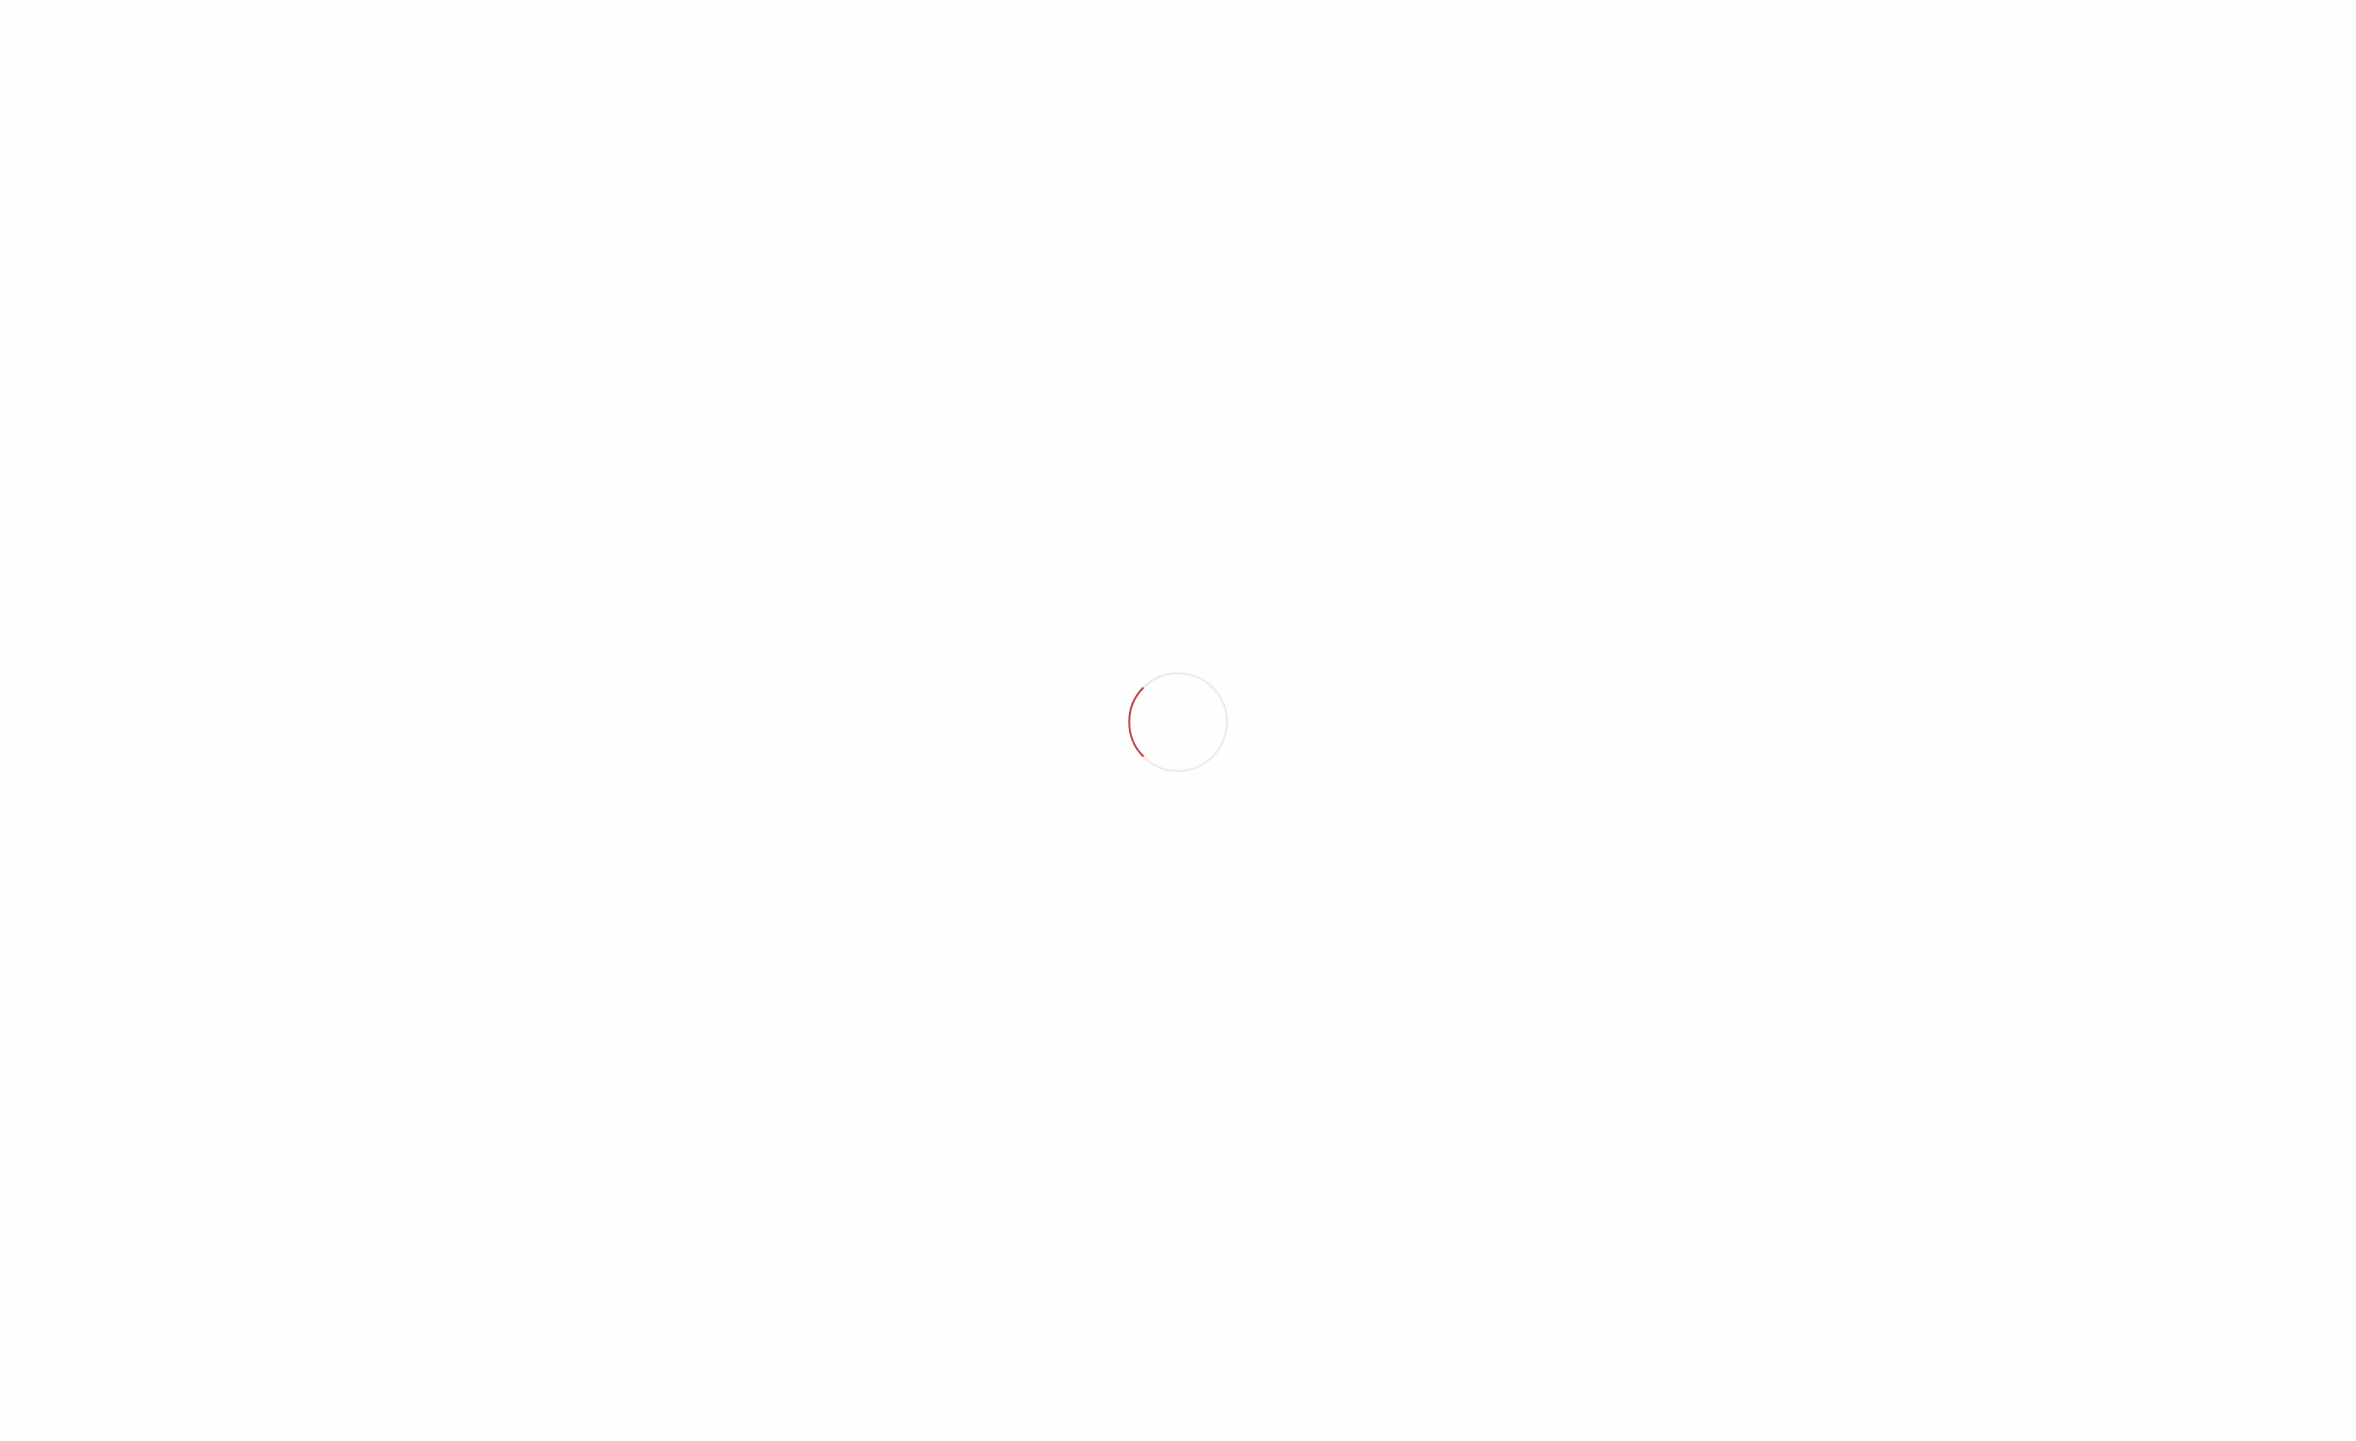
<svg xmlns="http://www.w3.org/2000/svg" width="2356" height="1441">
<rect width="100%" height="100%" fill="#fefefe"/>
<path d="M1143.5 687.5c11.5-11.5 28-16.5 44-13.5c9.5 2 18.5 6.5 25 13.5c31 30.5 9 83.5-34.5 83.5c-13 0-25.5-5-34.5-14.5" fill="none" stroke="#f6e7e7" stroke-width="2"/>
<path d="M1143.5 756.5c-19-18.5-19-50.5 0-69" fill="none" stroke="#c14749" stroke-width="2"/>
</svg>
